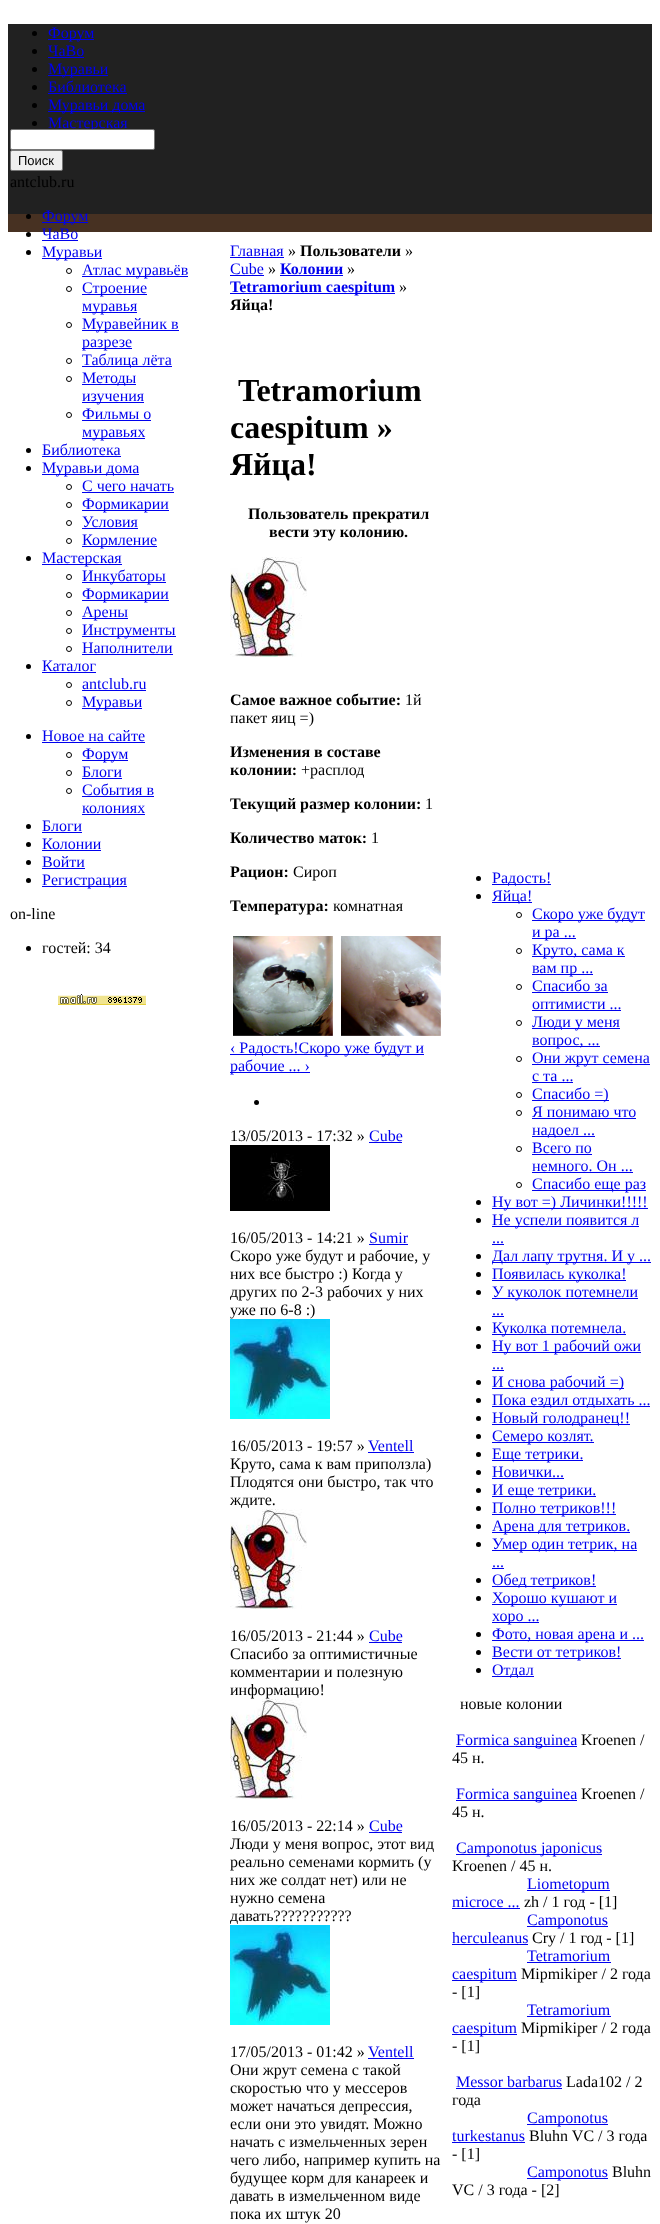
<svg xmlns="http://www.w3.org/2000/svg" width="660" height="2224">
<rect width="100%" height="100%" fill="#fff"/>
<rect x="8" y="24" width="644" height="190" fill="#212121"/>
<circle cx="34.5" cy="33.5" r="2.5" fill="#000"/>
<rect x="48" y="39" width="46" height="1" fill="#00e"/>
<text x="48" y="38" style="font-family:Liberation Serif;font-size:16px;fill:#00e">Форум</text>
<circle cx="34.5" cy="51.5" r="2.5" fill="#000"/>
<text x="48" y="56" style="font-family:Liberation Serif;font-size:16px;fill:#00e">ЧаВо</text>
<rect x="48" y="57" width="36" height="1" fill="#00e"/>
<circle cx="34.5" cy="69.5" r="2.5" fill="#000"/>
<rect x="48" y="75" width="60" height="1" fill="#00e"/>
<text x="48" y="74" style="font-family:Liberation Serif;font-size:16px;fill:#00e">Муравьи</text>
<circle cx="34.5" cy="87.5" r="2.5" fill="#000"/>
<text x="48" y="92" style="font-family:Liberation Serif;font-size:16px;fill:#00e">Библиотека</text>
<rect x="48" y="93" width="79" height="1" fill="#00e"/>
<circle cx="34.5" cy="105.5" r="2.5" fill="#000"/>
<rect x="48" y="111" width="97" height="1" fill="#00e"/>
<text x="48" y="110" style="font-family:Liberation Serif;font-size:16px;fill:#00e">Муравьи дома</text>
<circle cx="34.5" cy="123.5" r="2.5" fill="#000"/>
<text x="48" y="128" style="font-family:Liberation Serif;font-size:16px;fill:#00e">Мастерская</text>
<rect x="8" y="214" width="644" height="18" fill="#473122"/>
<text x="10" y="187" style="font-family:Liberation Serif;font-size:16px;fill:#000">antclub.ru</text>
<circle cx="28.5" cy="216.5" r="2.5" fill="#000"/>
<rect x="42" y="222" width="46" height="1" fill="#00e"/>
<text x="42" y="221" style="font-family:Liberation Serif;font-size:16px;fill:#00e">Форум</text>
<circle cx="28.5" cy="234.5" r="2.5" fill="#000"/>
<text x="42" y="239" style="font-family:Liberation Serif;font-size:16px;fill:#00e">ЧаВо</text>
<rect x="42" y="240" width="36" height="1" fill="#00e"/>
<circle cx="28.5" cy="252.5" r="2.5" fill="#000"/>
<rect x="42" y="258" width="60" height="1" fill="#00e"/>
<text x="42" y="257" style="font-family:Liberation Serif;font-size:16px;fill:#00e">Муравьи</text>
<circle cx="69" cy="271" r="2.5" fill="none" stroke="#000"/>
<rect x="82" y="276" width="106" height="1" fill="#00e"/>
<text x="82" y="275" style="font-family:Liberation Serif;font-size:16px;fill:#00e">Атлас муравьёв</text>
<circle cx="69" cy="289" r="2.5" fill="none" stroke="#000"/>
<rect x="82" y="294" width="65" height="1" fill="#00e"/>
<text x="82" y="293" style="font-family:Liberation Serif;font-size:16px;fill:#00e">Строение</text>
<rect x="82" y="312" width="55" height="1" fill="#00e"/>
<text x="82" y="311" style="font-family:Liberation Serif;font-size:16px;fill:#00e">муравья</text>
<circle cx="69" cy="325" r="2.5" fill="none" stroke="#000"/>
<rect x="82" y="330" width="97" height="1" fill="#00e"/>
<text x="82" y="329" style="font-family:Liberation Serif;font-size:16px;fill:#00e">Муравейник в</text>
<rect x="82" y="348" width="50" height="1" fill="#00e"/>
<text x="82" y="347" style="font-family:Liberation Serif;font-size:16px;fill:#00e">разрезе</text>
<circle cx="69" cy="361" r="2.5" fill="none" stroke="#000"/>
<rect x="82" y="366" width="90" height="1" fill="#00e"/>
<text x="82" y="365" style="font-family:Liberation Serif;font-size:16px;fill:#00e">Таблица лёта</text>
<circle cx="69" cy="379" r="2.5" fill="none" stroke="#000"/>
<rect x="82" y="384" width="54" height="1" fill="#00e"/>
<text x="82" y="383" style="font-family:Liberation Serif;font-size:16px;fill:#00e">Методы</text>
<rect x="82" y="402" width="62" height="1" fill="#00e"/>
<text x="82" y="401" style="font-family:Liberation Serif;font-size:16px;fill:#00e">изучения</text>
<circle cx="69" cy="415" r="2.5" fill="none" stroke="#000"/>
<text x="82" y="419" style="font-family:Liberation Serif;font-size:16px;fill:#00e">Фильмы о</text>
<rect x="82" y="420" width="69" height="1" fill="#00e"/>
<rect x="82" y="438" width="63" height="1" fill="#00e"/>
<text x="82" y="437" style="font-family:Liberation Serif;font-size:16px;fill:#00e">муравьях</text>
<circle cx="28.5" cy="450.5" r="2.5" fill="#000"/>
<text x="42" y="455" style="font-family:Liberation Serif;font-size:16px;fill:#00e">Библиотека</text>
<rect x="42" y="456" width="79" height="1" fill="#00e"/>
<circle cx="28.5" cy="468.5" r="2.5" fill="#000"/>
<rect x="42" y="474" width="97" height="1" fill="#00e"/>
<text x="42" y="473" style="font-family:Liberation Serif;font-size:16px;fill:#00e">Муравьи дома</text>
<circle cx="69" cy="487" r="2.5" fill="none" stroke="#000"/>
<text x="82" y="491" style="font-family:Liberation Serif;font-size:16px;fill:#00e">С чего начать</text>
<rect x="82" y="492" width="92" height="1" fill="#00e"/>
<circle cx="69" cy="505" r="2.5" fill="none" stroke="#000"/>
<rect x="82" y="510" width="87" height="1" fill="#00e"/>
<text x="82" y="509" style="font-family:Liberation Serif;font-size:16px;fill:#00e">Формикарии</text>
<circle cx="69" cy="523" r="2.5" fill="none" stroke="#000"/>
<text x="82" y="527" style="font-family:Liberation Serif;font-size:16px;fill:#00e">Условия</text>
<rect x="82" y="528" width="56" height="1" fill="#00e"/>
<circle cx="69" cy="541" r="2.5" fill="none" stroke="#000"/>
<rect x="82" y="546" width="75" height="1" fill="#00e"/>
<text x="82" y="545" style="font-family:Liberation Serif;font-size:16px;fill:#00e">Кормление</text>
<circle cx="28.5" cy="558.5" r="2.5" fill="#000"/>
<rect x="42" y="564" width="80" height="1" fill="#00e"/>
<text x="42" y="563" style="font-family:Liberation Serif;font-size:16px;fill:#00e">Мастерская</text>
<circle cx="69" cy="577" r="2.5" fill="none" stroke="#000"/>
<rect x="82" y="582" width="84" height="1" fill="#00e"/>
<text x="82" y="581" style="font-family:Liberation Serif;font-size:16px;fill:#00e">Инкубаторы</text>
<circle cx="69" cy="595" r="2.5" fill="none" stroke="#000"/>
<rect x="82" y="600" width="87" height="1" fill="#00e"/>
<text x="82" y="599" style="font-family:Liberation Serif;font-size:16px;fill:#00e">Формикарии</text>
<circle cx="69" cy="613" r="2.5" fill="none" stroke="#000"/>
<rect x="82" y="618" width="46" height="1" fill="#00e"/>
<text x="82" y="617" style="font-family:Liberation Serif;font-size:16px;fill:#00e">Арены</text>
<circle cx="69" cy="631" r="2.5" fill="none" stroke="#000"/>
<rect x="82" y="636" width="94" height="1" fill="#00e"/>
<text x="82" y="635" style="font-family:Liberation Serif;font-size:16px;fill:#00e">Инструменты</text>
<circle cx="69" cy="649" r="2.5" fill="none" stroke="#000"/>
<text x="82" y="653" style="font-family:Liberation Serif;font-size:16px;fill:#00e">Наполнители</text>
<rect x="82" y="654" width="91" height="1" fill="#00e"/>
<circle cx="28.5" cy="666.5" r="2.5" fill="#000"/>
<text x="42" y="671" style="font-family:Liberation Serif;font-size:16px;fill:#00e">Каталог</text>
<rect x="42" y="672" width="54" height="1" fill="#00e"/>
<circle cx="69" cy="685" r="2.5" fill="none" stroke="#000"/>
<text x="82" y="689" style="font-family:Liberation Serif;font-size:16px;fill:#00e">antclub.ru</text>
<rect x="82" y="690" width="64" height="1" fill="#00e"/>
<circle cx="69" cy="703" r="2.5" fill="none" stroke="#000"/>
<rect x="82" y="708" width="60" height="1" fill="#00e"/>
<text x="82" y="707" style="font-family:Liberation Serif;font-size:16px;fill:#00e">Муравьи</text>
<circle cx="28.5" cy="736.5" r="2.5" fill="#000"/>
<text x="42" y="741" style="font-family:Liberation Serif;font-size:16px;fill:#00e">Новое на сайте</text>
<rect x="42" y="742" width="103" height="1" fill="#00e"/>
<circle cx="69" cy="755" r="2.5" fill="none" stroke="#000"/>
<rect x="82" y="760" width="46" height="1" fill="#00e"/>
<text x="82" y="759" style="font-family:Liberation Serif;font-size:16px;fill:#00e">Форум</text>
<circle cx="69" cy="773" r="2.5" fill="none" stroke="#000"/>
<text x="82" y="777" style="font-family:Liberation Serif;font-size:16px;fill:#00e">Блоги</text>
<rect x="82" y="778" width="40" height="1" fill="#00e"/>
<circle cx="69" cy="791" r="2.5" fill="none" stroke="#000"/>
<text x="82" y="795" style="font-family:Liberation Serif;font-size:16px;fill:#00e">События в</text>
<rect x="82" y="796" width="72" height="1" fill="#00e"/>
<text x="82" y="813" style="font-family:Liberation Serif;font-size:16px;fill:#00e">колониях</text>
<rect x="82" y="814" width="63" height="1" fill="#00e"/>
<circle cx="28.5" cy="826.5" r="2.5" fill="#000"/>
<text x="42" y="831" style="font-family:Liberation Serif;font-size:16px;fill:#00e">Блоги</text>
<rect x="42" y="832" width="40" height="1" fill="#00e"/>
<circle cx="28.5" cy="844.5" r="2.5" fill="#000"/>
<text x="42" y="849" style="font-family:Liberation Serif;font-size:16px;fill:#00e">Колонии</text>
<rect x="42" y="850" width="59" height="1" fill="#00e"/>
<circle cx="28.5" cy="862.5" r="2.5" fill="#000"/>
<text x="42" y="867" style="font-family:Liberation Serif;font-size:16px;fill:#00e">Войти</text>
<rect x="42" y="868" width="43" height="1" fill="#00e"/>
<circle cx="28.5" cy="880.5" r="2.5" fill="#000"/>
<rect x="42" y="886" width="85" height="1" fill="#00e"/>
<text x="42" y="885" style="font-family:Liberation Serif;font-size:16px;fill:#00e">Peгиcтpaция</text>
<text x="10" y="919" style="font-family:Liberation Serif;font-size:16px;fill:#000">on-line</text>
<circle cx="28.5" cy="948.5" r="2.5" fill="#000"/>
<text x="42" y="953" style="font-family:Liberation Serif;font-size:16px;fill:#000">гостей: 34</text>
<image x="58" y="994" width="88" height="11" href="media/1.png"/>
<text x="230" y="256" style="font-family:Liberation Serif;font-size:16px;fill:#00e">Главная</text>
<rect x="230" y="257" width="54" height="1" fill="#00e"/>
<text x="288" y="256" style="font-family:Liberation Serif;font-size:16px;fill:#000">»</text>
<text x="300" y="256" style="font-family:Liberation Serif;font-size:16px;font-weight:bold;fill:#000">Пользователи</text>
<text x="405" y="256" style="font-family:Liberation Serif;font-size:16px;fill:#000">»</text>
<text x="230" y="274" style="font-family:Liberation Serif;font-size:16px;fill:#00e">Cube</text>
<rect x="230" y="275" width="34" height="1" fill="#00e"/>
<text x="268" y="274" style="font-family:Liberation Serif;font-size:16px;fill:#000">»</text>
<text x="280" y="274" style="font-family:Liberation Serif;font-size:16px;font-weight:bold;fill:#00e">Колонии</text>
<rect x="280" y="275" width="63" height="1" fill="#00e"/>
<text x="347" y="274" style="font-family:Liberation Serif;font-size:16px;fill:#000">»</text>
<rect x="230" y="293" width="165" height="1" fill="#00e"/>
<text x="230" y="292" style="font-family:Liberation Serif;font-size:16px;font-weight:bold;fill:#00e">Tetramorium caespitum</text>
<text x="399" y="292" style="font-family:Liberation Serif;font-size:16px;fill:#000">»</text>
<text x="230" y="310" style="font-family:Liberation Serif;font-size:16px;font-weight:bold;fill:#000">Яйца!</text>
<text x="238" y="401" style="font-family:Liberation Serif;font-size:32px;font-weight:bold;fill:#000">Tetramorium</text>
<text x="230" y="438" style="font-family:Liberation Serif;font-size:32px;font-weight:bold;fill:#000">caespitum »</text>
<text x="230" y="475" style="font-family:Liberation Serif;font-size:32px;font-weight:bold;fill:#000">Яйца!</text>
<text x="248" y="519" style="font-family:Liberation Serif;font-size:16px;font-weight:bold;fill:#000">Пользователь прекратил</text>
<text x="269" y="537" style="font-family:Liberation Serif;font-size:16px;font-weight:bold;fill:#000">вести эту колонию.</text>
<image x="230" y="557" width="77" height="100" href="media/2.png"/>
<text x="230" y="705" style="font-family:Liberation Serif;font-size:16px;font-weight:bold;fill:#000">Самое важное событие:</text>
<text x="405" y="705" style="font-family:Liberation Serif;font-size:16px;fill:#000">1й</text>
<text x="230" y="723" style="font-family:Liberation Serif;font-size:16px;fill:#000">пакет яиц =)</text>
<text x="230" y="757" style="font-family:Liberation Serif;font-size:16px;font-weight:bold;fill:#000">Изменения в составе</text>
<text x="230" y="775" style="font-family:Liberation Serif;font-size:16px;font-weight:bold;fill:#000">кoлонии:</text>
<text x="301" y="775" style="font-family:Liberation Serif;font-size:16px;fill:#000">+расплод</text>
<text x="230" y="809" style="font-family:Liberation Serif;font-size:16px;font-weight:bold;fill:#000">Текущий размер кoлонии:</text>
<text x="425" y="809" style="font-family:Liberation Serif;font-size:16px;fill:#000">1</text>
<text x="230" y="843" style="font-family:Liberation Serif;font-size:16px;font-weight:bold;fill:#000">Количество маток:</text>
<text x="371" y="843" style="font-family:Liberation Serif;font-size:16px;fill:#000">1</text>
<text x="230" y="877" style="font-family:Liberation Serif;font-size:16px;font-weight:bold;fill:#000">Рацион:</text>
<text x="293" y="877" style="font-family:Liberation Serif;font-size:16px;fill:#000">Сироп</text>
<text x="230" y="911" style="font-family:Liberation Serif;font-size:16px;font-weight:bold;fill:#000">Температура:</text>
<text x="333" y="911" style="font-family:Liberation Serif;font-size:16px;fill:#000">комнатная</text>
<image x="233" y="936" width="100" height="100" href="media/3.png"/>
<image x="341" y="936" width="100" height="100" href="media/4.png"/>
<rect x="230" y="1054" width="194" height="1" fill="#00e"/>
<text x="230" y="1053" style="font-family:Liberation Serif;font-size:16px;fill:#00e">‹ Радость!Скоро уже будут и</text>
<rect x="230" y="1072" width="80" height="1" fill="#00e"/>
<text x="230" y="1071" style="font-family:Liberation Serif;font-size:16px;fill:#00e">рабочие ... ›</text>
<circle cx="256.5" cy="1102.5" r="2.5" fill="#000"/>
<text x="230" y="1141" style="font-family:Liberation Serif;font-size:16px;fill:#000">13/05/2013 - 17:32 »</text>
<text x="369" y="1141" style="font-family:Liberation Serif;font-size:16px;fill:#00e">Cube</text>
<rect x="369" y="1142" width="33" height="1" fill="#00e"/>
<image x="230" y="1145" width="100" height="66" href="media/5.png"/>
<text x="230" y="1243" style="font-family:Liberation Serif;font-size:16px;fill:#000">16/05/2013 - 14:21 »</text>
<text x="369" y="1243" style="font-family:Liberation Serif;font-size:16px;fill:#00e">Sumir</text>
<rect x="369" y="1244" width="39" height="1" fill="#00e"/>
<text x="230" y="1261" style="font-family:Liberation Serif;font-size:16px;fill:#000">Скоро уже будут и рабочие, у</text>
<text x="230" y="1279" style="font-family:Liberation Serif;font-size:16px;fill:#000">них все быстро :) Когда у</text>
<text x="230" y="1297" style="font-family:Liberation Serif;font-size:16px;fill:#000">других по 2-3 рабочих у них</text>
<text x="230" y="1315" style="font-family:Liberation Serif;font-size:16px;fill:#000">уже по 6-8 :)</text>
<image x="230" y="1319" width="100" height="100" href="media/6.png"/>
<text x="230" y="1451" style="font-family:Liberation Serif;font-size:16px;fill:#000">16/05/2013 - 19:57 »</text>
<text x="368" y="1451" style="font-family:Liberation Serif;font-size:16px;fill:#00e">Ventell</text>
<rect x="368" y="1452" width="46" height="1" fill="#00e"/>
<text x="230" y="1469" style="font-family:Liberation Serif;font-size:16px;fill:#000">Круто, сама к вам приползла)</text>
<text x="230" y="1487" style="font-family:Liberation Serif;font-size:16px;fill:#000">Плодятся они быстро, так что</text>
<text x="230" y="1505" style="font-family:Liberation Serif;font-size:16px;fill:#000">ждите.</text>
<image x="230" y="1509" width="77" height="100" href="media/2.png"/>
<text x="230" y="1641" style="font-family:Liberation Serif;font-size:16px;fill:#000">16/05/2013 - 21:44 »</text>
<text x="369" y="1641" style="font-family:Liberation Serif;font-size:16px;fill:#00e">Cube</text>
<rect x="369" y="1642" width="33" height="1" fill="#00e"/>
<text x="230" y="1659" style="font-family:Liberation Serif;font-size:16px;fill:#000">Спасибо за оптимистичные</text>
<text x="230" y="1677" style="font-family:Liberation Serif;font-size:16px;fill:#000">комментарии и полезную</text>
<text x="230" y="1695" style="font-family:Liberation Serif;font-size:16px;fill:#000">информацию!</text>
<image x="230" y="1699" width="77" height="100" href="media/2.png"/>
<text x="230" y="1831" style="font-family:Liberation Serif;font-size:16px;fill:#000">16/05/2013 - 22:14 »</text>
<text x="369" y="1831" style="font-family:Liberation Serif;font-size:16px;fill:#00e">Cube</text>
<rect x="369" y="1832" width="33" height="1" fill="#00e"/>
<text x="230" y="1849" style="font-family:Liberation Serif;font-size:16px;fill:#000">Люди у меня вопрос, этот вид</text>
<text x="230" y="1867" style="font-family:Liberation Serif;font-size:16px;fill:#000">реально семенами кормить (у</text>
<text x="230" y="1885" style="font-family:Liberation Serif;font-size:16px;fill:#000">них же солдат нет) или не</text>
<text x="230" y="1903" style="font-family:Liberation Serif;font-size:16px;fill:#000">нужно семена</text>
<text x="230" y="1921" style="font-family:Liberation Serif;font-size:16px;fill:#000">давать???????????</text>
<image x="230" y="1925" width="100" height="100" href="media/6.png"/>
<text x="230" y="2057" style="font-family:Liberation Serif;font-size:16px;fill:#000">17/05/2013 - 01:42 »</text>
<text x="368" y="2057" style="font-family:Liberation Serif;font-size:16px;fill:#00e">Ventell</text>
<rect x="368" y="2058" width="46" height="1" fill="#00e"/>
<text x="230" y="2075" style="font-family:Liberation Serif;font-size:16px;fill:#000">Они жрут семена с такой</text>
<text x="230" y="2093" style="font-family:Liberation Serif;font-size:16px;fill:#000">скоростью что у мессеров</text>
<text x="230" y="2111" style="font-family:Liberation Serif;font-size:16px;fill:#000">может начаться депрессия,</text>
<text x="230" y="2129" style="font-family:Liberation Serif;font-size:16px;fill:#000">если они это увидят. Можно</text>
<text x="230" y="2147" style="font-family:Liberation Serif;font-size:16px;fill:#000">начать с измельченных зерен</text>
<text x="230" y="2165" style="font-family:Liberation Serif;font-size:16px;fill:#000">чего либо, например купить на</text>
<text x="230" y="2183" style="font-family:Liberation Serif;font-size:16px;fill:#000">будущее корм для канареек и</text>
<text x="230" y="2201" style="font-family:Liberation Serif;font-size:16px;fill:#000">давать в измельченном виде</text>
<text x="230" y="2219" style="font-family:Liberation Serif;font-size:16px;fill:#000">пока их штук 20</text>
<circle cx="478.5" cy="878.5" r="2.5" fill="#000"/>
<rect x="492" y="884" width="59" height="1" fill="#00e"/>
<text x="492" y="883" style="font-family:Liberation Serif;font-size:16px;fill:#00e">Радость!</text>
<circle cx="478.5" cy="896.5" r="2.5" fill="#000"/>
<rect x="492" y="902" width="40" height="1" fill="#00e"/>
<text x="492" y="901" style="font-family:Liberation Serif;font-size:16px;fill:#00e">Яйца!</text>
<circle cx="519" cy="915" r="2.5" fill="none" stroke="#000"/>
<rect x="532" y="920" width="113" height="1" fill="#00e"/>
<text x="532" y="919" style="font-family:Liberation Serif;font-size:16px;fill:#00e">Скоро уже будут</text>
<rect x="532" y="938" width="44" height="1" fill="#00e"/>
<text x="532" y="937" style="font-family:Liberation Serif;font-size:16px;fill:#00e">и ра ...</text>
<circle cx="519" cy="951" r="2.5" fill="none" stroke="#000"/>
<rect x="532" y="956" width="93" height="1" fill="#00e"/>
<text x="532" y="955" style="font-family:Liberation Serif;font-size:16px;fill:#00e">Круто, сама к</text>
<rect x="532" y="974" width="61" height="1" fill="#00e"/>
<text x="532" y="973" style="font-family:Liberation Serif;font-size:16px;fill:#00e">вам пр ...</text>
<circle cx="519" cy="987" r="2.5" fill="none" stroke="#000"/>
<text x="532" y="991" style="font-family:Liberation Serif;font-size:16px;fill:#00e">Спасибо за</text>
<rect x="532" y="992" width="76" height="1" fill="#00e"/>
<text x="532" y="1009" style="font-family:Liberation Serif;font-size:16px;fill:#00e">оптимисти ...</text>
<rect x="532" y="1010" width="89" height="1" fill="#00e"/>
<circle cx="519" cy="1023" r="2.5" fill="none" stroke="#000"/>
<rect x="532" y="1028" width="88" height="1" fill="#00e"/>
<text x="532" y="1027" style="font-family:Liberation Serif;font-size:16px;fill:#00e">Люди у меня</text>
<rect x="532" y="1046" width="68" height="1" fill="#00e"/>
<text x="532" y="1045" style="font-family:Liberation Serif;font-size:16px;fill:#00e">вопрос, ...</text>
<circle cx="519" cy="1059" r="2.5" fill="none" stroke="#000"/>
<rect x="532" y="1064" width="118" height="1" fill="#00e"/>
<text x="532" y="1063" style="font-family:Liberation Serif;font-size:16px;fill:#00e">Они жрут семена</text>
<text x="532" y="1081" style="font-family:Liberation Serif;font-size:16px;fill:#00e">с та ...</text>
<rect x="532" y="1082" width="41" height="1" fill="#00e"/>
<circle cx="519" cy="1095" r="2.5" fill="none" stroke="#000"/>
<rect x="532" y="1100" width="77" height="1" fill="#00e"/>
<text x="532" y="1099" style="font-family:Liberation Serif;font-size:16px;fill:#00e">Спасибо =)</text>
<circle cx="519" cy="1113" r="2.5" fill="none" stroke="#000"/>
<text x="532" y="1117" style="font-family:Liberation Serif;font-size:16px;fill:#00e">Я понимаю что</text>
<rect x="532" y="1118" width="104" height="1" fill="#00e"/>
<rect x="532" y="1136" width="63" height="1" fill="#00e"/>
<text x="532" y="1135" style="font-family:Liberation Serif;font-size:16px;fill:#00e">надоел ...</text>
<circle cx="519" cy="1149" r="2.5" fill="none" stroke="#000"/>
<text x="532" y="1153" style="font-family:Liberation Serif;font-size:16px;fill:#00e">Всего по</text>
<rect x="532" y="1154" width="60" height="1" fill="#00e"/>
<text x="532" y="1171" style="font-family:Liberation Serif;font-size:16px;fill:#00e">немного. Он ...</text>
<rect x="532" y="1172" width="101" height="1" fill="#00e"/>
<circle cx="519" cy="1185" r="2.5" fill="none" stroke="#000"/>
<rect x="532" y="1190" width="114" height="1" fill="#00e"/>
<text x="532" y="1189" style="font-family:Liberation Serif;font-size:16px;fill:#00e">Спасибо еще раз</text>
<circle cx="478.5" cy="1202.5" r="2.5" fill="#000"/>
<rect x="492" y="1208" width="156" height="1" fill="#00e"/>
<text x="492" y="1207" style="font-family:Liberation Serif;font-size:16px;fill:#00e">Ну вот =) Личинки!!!!!</text>
<circle cx="478.5" cy="1220.5" r="2.5" fill="#000"/>
<rect x="492" y="1226" width="147" height="1" fill="#00e"/>
<text x="492" y="1225" style="font-family:Liberation Serif;font-size:16px;fill:#00e">Не успели появится л</text>
<text x="492" y="1243" style="font-family:Liberation Serif;font-size:16px;fill:#00e">...</text>
<rect x="492" y="1244" width="12" height="1" fill="#00e"/>
<circle cx="478.5" cy="1256.5" r="2.5" fill="#000"/>
<rect x="492" y="1262" width="159" height="1" fill="#00e"/>
<text x="492" y="1261" style="font-family:Liberation Serif;font-size:16px;fill:#00e">Дал лапу трутня. И у ...</text>
<circle cx="478.5" cy="1274.5" r="2.5" fill="#000"/>
<rect x="492" y="1280" width="134" height="1" fill="#00e"/>
<text x="492" y="1279" style="font-family:Liberation Serif;font-size:16px;fill:#00e">Появилась куколка!</text>
<circle cx="478.5" cy="1292.5" r="2.5" fill="#000"/>
<rect x="492" y="1298" width="146" height="1" fill="#00e"/>
<text x="492" y="1297" style="font-family:Liberation Serif;font-size:16px;fill:#00e">У куколок потемнели</text>
<text x="492" y="1315" style="font-family:Liberation Serif;font-size:16px;fill:#00e">...</text>
<rect x="492" y="1316" width="12" height="1" fill="#00e"/>
<circle cx="478.5" cy="1328.5" r="2.5" fill="#000"/>
<rect x="492" y="1334" width="134" height="1" fill="#00e"/>
<text x="492" y="1333" style="font-family:Liberation Serif;font-size:16px;fill:#00e">Куколка потемнела.</text>
<circle cx="478.5" cy="1346.5" r="2.5" fill="#000"/>
<rect x="492" y="1352" width="149" height="1" fill="#00e"/>
<text x="492" y="1351" style="font-family:Liberation Serif;font-size:16px;fill:#00e">Ну вот 1 рабочий ожи</text>
<text x="492" y="1369" style="font-family:Liberation Serif;font-size:16px;fill:#00e">...</text>
<rect x="492" y="1370" width="12" height="1" fill="#00e"/>
<circle cx="478.5" cy="1382.5" r="2.5" fill="#000"/>
<rect x="492" y="1388" width="132" height="1" fill="#00e"/>
<text x="492" y="1387" style="font-family:Liberation Serif;font-size:16px;fill:#00e">И снова рабочий =)</text>
<circle cx="478.5" cy="1400.5" r="2.5" fill="#000"/>
<rect x="492" y="1406" width="158" height="1" fill="#00e"/>
<text x="492" y="1405" style="font-family:Liberation Serif;font-size:16px;fill:#00e">Пока ездил отдыхать ...</text>
<circle cx="478.5" cy="1418.5" r="2.5" fill="#000"/>
<rect x="492" y="1424" width="138" height="1" fill="#00e"/>
<text x="492" y="1423" style="font-family:Liberation Serif;font-size:16px;fill:#00e">Новый голодранец!!</text>
<circle cx="478.5" cy="1436.5" r="2.5" fill="#000"/>
<rect x="492" y="1442" width="102" height="1" fill="#00e"/>
<text x="492" y="1441" style="font-family:Liberation Serif;font-size:16px;fill:#00e">Семеро козлят.</text>
<circle cx="478.5" cy="1454.5" r="2.5" fill="#000"/>
<rect x="492" y="1460" width="91" height="1" fill="#00e"/>
<text x="492" y="1459" style="font-family:Liberation Serif;font-size:16px;fill:#00e">Еще тетрики.</text>
<circle cx="478.5" cy="1472.5" r="2.5" fill="#000"/>
<text x="492" y="1477" style="font-family:Liberation Serif;font-size:16px;fill:#00e">Новички...</text>
<rect x="492" y="1478" width="72" height="1" fill="#00e"/>
<circle cx="478.5" cy="1490.5" r="2.5" fill="#000"/>
<rect x="492" y="1496" width="104" height="1" fill="#00e"/>
<text x="492" y="1495" style="font-family:Liberation Serif;font-size:16px;fill:#00e">И еще тетрики.</text>
<circle cx="478.5" cy="1508.5" r="2.5" fill="#000"/>
<rect x="492" y="1514" width="124" height="1" fill="#00e"/>
<text x="492" y="1513" style="font-family:Liberation Serif;font-size:16px;fill:#00e">Полно тетриков!!!</text>
<circle cx="478.5" cy="1526.5" r="2.5" fill="#000"/>
<rect x="492" y="1532" width="138" height="1" fill="#00e"/>
<text x="492" y="1531" style="font-family:Liberation Serif;font-size:16px;fill:#00e">Арена для тетриков.</text>
<circle cx="478.5" cy="1544.5" r="2.5" fill="#000"/>
<rect x="492" y="1550" width="145" height="1" fill="#00e"/>
<text x="492" y="1549" style="font-family:Liberation Serif;font-size:16px;fill:#00e">Умер один тетрик, на</text>
<text x="492" y="1567" style="font-family:Liberation Serif;font-size:16px;fill:#00e">...</text>
<rect x="492" y="1568" width="12" height="1" fill="#00e"/>
<circle cx="478.5" cy="1580.5" r="2.5" fill="#000"/>
<rect x="492" y="1586" width="104" height="1" fill="#00e"/>
<text x="492" y="1585" style="font-family:Liberation Serif;font-size:16px;fill:#00e">Обед тетриков!</text>
<circle cx="478.5" cy="1598.5" r="2.5" fill="#000"/>
<rect x="492" y="1604" width="125" height="1" fill="#00e"/>
<text x="492" y="1603" style="font-family:Liberation Serif;font-size:16px;fill:#00e">Хорошо кушают и</text>
<rect x="492" y="1622" width="47" height="1" fill="#00e"/>
<text x="492" y="1621" style="font-family:Liberation Serif;font-size:16px;fill:#00e">хоро ...</text>
<circle cx="478.5" cy="1634.5" r="2.5" fill="#000"/>
<rect x="492" y="1640" width="152" height="1" fill="#00e"/>
<text x="492" y="1639" style="font-family:Liberation Serif;font-size:16px;fill:#00e">Фото, новая арена и ...</text>
<circle cx="478.5" cy="1652.5" r="2.5" fill="#000"/>
<rect x="492" y="1658" width="129" height="1" fill="#00e"/>
<text x="492" y="1657" style="font-family:Liberation Serif;font-size:16px;fill:#00e">Вести от тетриков!</text>
<circle cx="478.5" cy="1670.5" r="2.5" fill="#000"/>
<rect x="492" y="1676" width="42" height="1" fill="#00e"/>
<text x="492" y="1675" style="font-family:Liberation Serif;font-size:16px;fill:#00e">Отдал</text>
<text x="460" y="1709" style="font-family:Liberation Serif;font-size:16px;fill:#000">новые колонии</text>
<rect x="456" y="1746" width="121" height="1" fill="#00e"/>
<text x="456" y="1745" style="font-family:Liberation Serif;font-size:16px;fill:#00e">Formica sanguinea</text>
<text x="581" y="1745" style="font-family:Liberation Serif;font-size:16px;fill:#000">Kroenen /</text>
<text x="452" y="1763" style="font-family:Liberation Serif;font-size:16px;fill:#000">45 н.</text>
<rect x="456" y="1800" width="121" height="1" fill="#00e"/>
<text x="456" y="1799" style="font-family:Liberation Serif;font-size:16px;fill:#00e">Formica sanguinea</text>
<text x="581" y="1799" style="font-family:Liberation Serif;font-size:16px;fill:#000">Kroenen /</text>
<text x="452" y="1817" style="font-family:Liberation Serif;font-size:16px;fill:#000">45 н.</text>
<rect x="456" y="1854" width="146" height="1" fill="#00e"/>
<text x="456" y="1853" style="font-family:Liberation Serif;font-size:16px;fill:#00e">Camponotus japonicus</text>
<text x="452" y="1871" style="font-family:Liberation Serif;font-size:16px;fill:#000">Kroenen / 45 н.</text>
<rect x="527" y="1890" width="83" height="1" fill="#00e"/>
<text x="527" y="1889" style="font-family:Liberation Serif;font-size:16px;fill:#00e">Liometopum</text>
<text x="452" y="1907" style="font-family:Liberation Serif;font-size:16px;fill:#00e">microce ...</text>
<rect x="452" y="1908" width="68" height="1" fill="#00e"/>
<text x="524" y="1907" style="font-family:Liberation Serif;font-size:16px;fill:#000">zh / 1 год - [1]</text>
<rect x="527" y="1926" width="81" height="1" fill="#00e"/>
<text x="527" y="1925" style="font-family:Liberation Serif;font-size:16px;fill:#00e">Camponotus</text>
<text x="452" y="1943" style="font-family:Liberation Serif;font-size:16px;fill:#00e">herculeanus</text>
<rect x="452" y="1944" width="76" height="1" fill="#00e"/>
<text x="532" y="1943" style="font-family:Liberation Serif;font-size:16px;fill:#000">Cry / 1 год - [1]</text>
<text x="527" y="1961" style="font-family:Liberation Serif;font-size:16px;fill:#00e">Tetramorium</text>
<rect x="527" y="1962" width="84" height="1" fill="#00e"/>
<rect x="452" y="1980" width="65" height="1" fill="#00e"/>
<text x="452" y="1979" style="font-family:Liberation Serif;font-size:16px;fill:#00e">caespitum</text>
<text x="521" y="1979" style="font-family:Liberation Serif;font-size:16px;fill:#000">Mipmikiper / 2 года</text>
<text x="452" y="1997" style="font-family:Liberation Serif;font-size:16px;fill:#000">- [1]</text>
<text x="527" y="2015" style="font-family:Liberation Serif;font-size:16px;fill:#00e">Tetramorium</text>
<rect x="527" y="2016" width="84" height="1" fill="#00e"/>
<rect x="452" y="2034" width="65" height="1" fill="#00e"/>
<text x="452" y="2033" style="font-family:Liberation Serif;font-size:16px;fill:#00e">caespitum</text>
<text x="521" y="2033" style="font-family:Liberation Serif;font-size:16px;fill:#000">Mipmikiper / 2 года</text>
<text x="452" y="2051" style="font-family:Liberation Serif;font-size:16px;fill:#000">- [1]</text>
<text x="456" y="2087" style="font-family:Liberation Serif;font-size:16px;fill:#00e">Messor barbarus</text>
<rect x="456" y="2088" width="106" height="1" fill="#00e"/>
<text x="566" y="2087" style="font-family:Liberation Serif;font-size:16px;fill:#000">Lada102 / 2</text>
<text x="452" y="2105" style="font-family:Liberation Serif;font-size:16px;fill:#000">года</text>
<rect x="527" y="2124" width="81" height="1" fill="#00e"/>
<text x="527" y="2123" style="font-family:Liberation Serif;font-size:16px;fill:#00e">Camponotus</text>
<text x="452" y="2141" style="font-family:Liberation Serif;font-size:16px;fill:#00e">turkestanus</text>
<rect x="452" y="2142" width="73" height="1" fill="#00e"/>
<text x="529" y="2141" style="font-family:Liberation Serif;font-size:16px;fill:#000">Bluhn VC / 3 года</text>
<text x="452" y="2159" style="font-family:Liberation Serif;font-size:16px;fill:#000">- [1]</text>
<rect x="527" y="2178" width="81" height="1" fill="#00e"/>
<text x="527" y="2177" style="font-family:Liberation Serif;font-size:16px;fill:#00e">Camponotus</text>
<text x="612" y="2177" style="font-family:Liberation Serif;font-size:16px;fill:#000">Bluhn</text>
<text x="452" y="2195" style="font-family:Liberation Serif;font-size:16px;fill:#000">VC / 3 года - [2]</text>
<rect x="10.5" y="129.5" width="144" height="20" rx="1.5" fill="#fff" stroke="#767676"/>
<rect x="10.5" y="150.5" width="52" height="20" rx="1.5" fill="#efefef" stroke="#767676"/>
<text x="18" y="165" style="font-family:Liberation Sans;font-size:13px;fill:#000">Поиск</text>
</svg>
